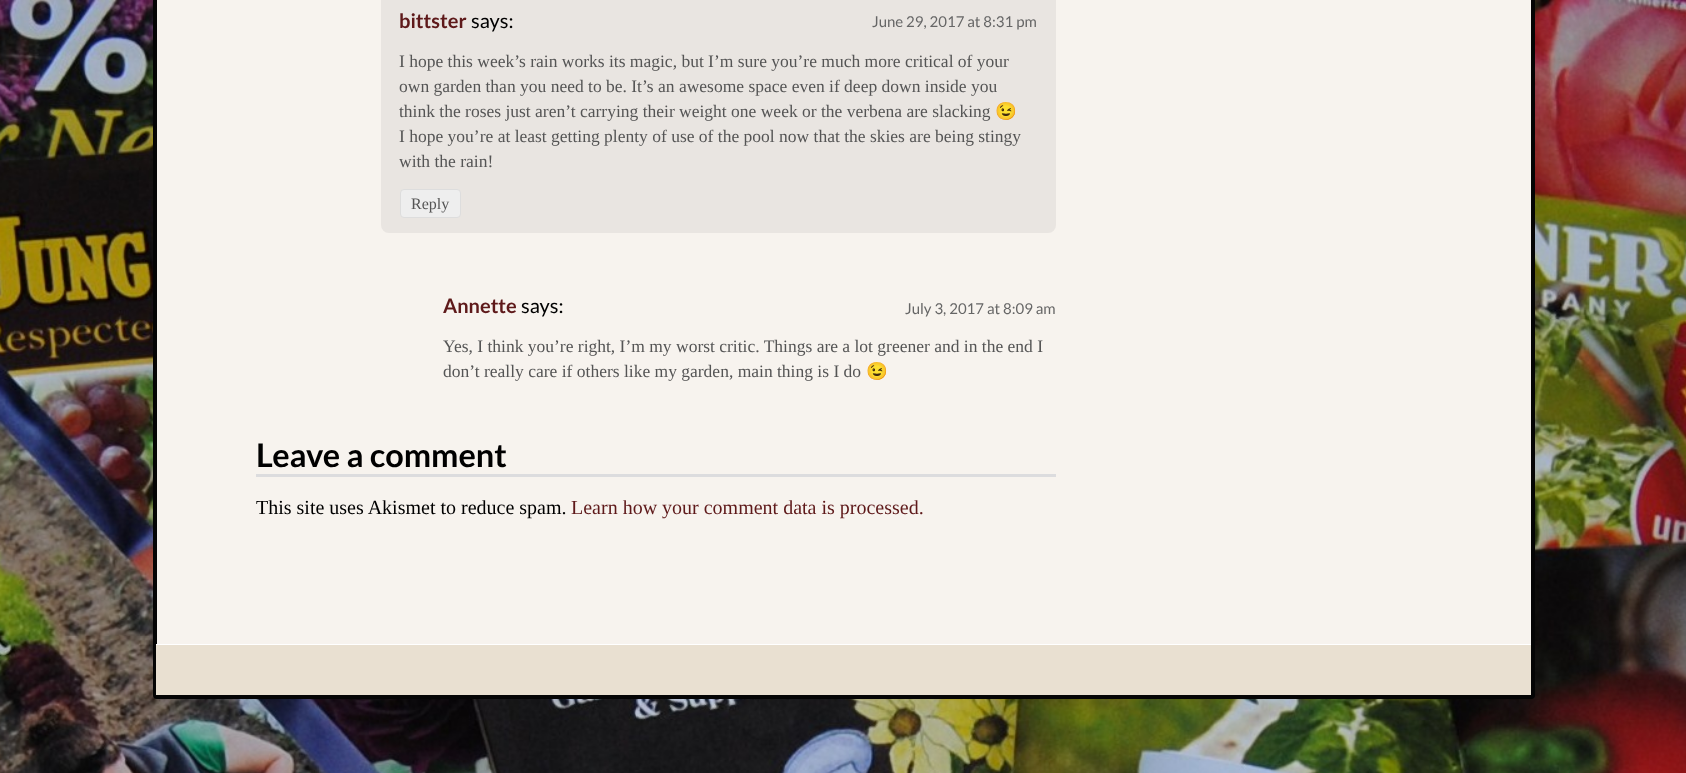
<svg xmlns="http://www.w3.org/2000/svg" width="1686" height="773">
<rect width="100%" height="100%" fill="#fff"/>
<image x="0" y="0" width="1686" height="773" href="media/1.png"/>
<rect x="155" y="-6" width="1378" height="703" rx="2" fill="#f7f3ee" stroke="#050505" stroke-width="4"/>
<rect x="381" y="-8" width="675" height="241" rx="8" fill="#e9e5e1"/>
<text x="399" y="28" style="font-family:Lato;font-size:20px;font-weight:bold;fill:#5e191a">bittster</text>
<text x="471" y="28" style="font-family:Lato;font-size:20px;fill:#000">says:</text>
<text x="872" y="27" style="font-family:Lato;font-size:15px;fill:#666">June 29, 2017 at 8:31 pm</text>
<text x="399" y="67" style="font-family:Liberation Serif;font-size:17.5px;fill:#555">I hope this week’s rain works its magic, but I’m sure you’re much more critical of your</text>
<text x="399" y="92" style="font-family:Liberation Serif;font-size:17.5px;fill:#555">own garden than you need to be. It’s an awesome space even if deep down inside you</text>
<text x="399" y="117" style="font-family:Liberation Serif;font-size:17.5px;fill:#555">think the roses just aren’t carrying their weight one week or the verbena are slacking</text>
<text x="995" y="117" style="font-family:Noto Color Emoji;font-size:17.5px;fill:#555">😉</text>
<text x="399" y="142" style="font-family:Liberation Serif;font-size:17.5px;fill:#555">I hope you’re at least getting plenty of use of the pool now that the skies are being stingy</text>
<text x="399" y="167" style="font-family:Liberation Serif;font-size:17.5px;fill:#555">with the rain!</text>
<rect x="400.5" y="189.5" width="60" height="28" rx="3.5" fill="#eee" stroke="#ddd"/>
<text x="411" y="209" style="font-family:Liberation Serif;font-size:16px;fill:#555">Reply</text>
<text x="443" y="313" style="font-family:Lato;font-size:20px;font-weight:bold;fill:#5e191a">Annette</text>
<text x="521" y="313" style="font-family:Lato;font-size:20px;fill:#000">says:</text>
<text x="905" y="314" style="font-family:Lato;font-size:15px;fill:#666">July 3, 2017 at 8:09 am</text>
<text x="443" y="352" style="font-family:Liberation Serif;font-size:17.5px;fill:#555">Yes, I think you’re right, I’m my worst critic. Things are a lot greener and in the end I</text>
<text x="443" y="377" style="font-family:Liberation Serif;font-size:17.5px;fill:#555">don’t really care if others like my garden, main thing is I do</text>
<text x="866" y="377" style="font-family:Noto Color Emoji;font-size:17.5px;fill:#555">😉</text>
<text x="256" y="467" style="font-family:Lato;font-size:32.5px;font-weight:bold;fill:#000">Leave a comment</text>
<rect x="256" y="474" width="800" height="3" fill="#dcdcde"/>
<text x="256" y="514" style="font-family:Liberation Serif;font-size:20px;fill:#000">This site uses Akismet to reduce spam.</text>
<text x="571" y="514" style="font-family:Liberation Serif;font-size:20px;fill:#5e191a">Learn how your comment data is processed.</text>
<rect x="156" y="645" width="1375" height="50" fill="#e9e0d1"/>
<rect x="156" y="644" width="1375" height="1" fill="#fff"/>
</svg>
